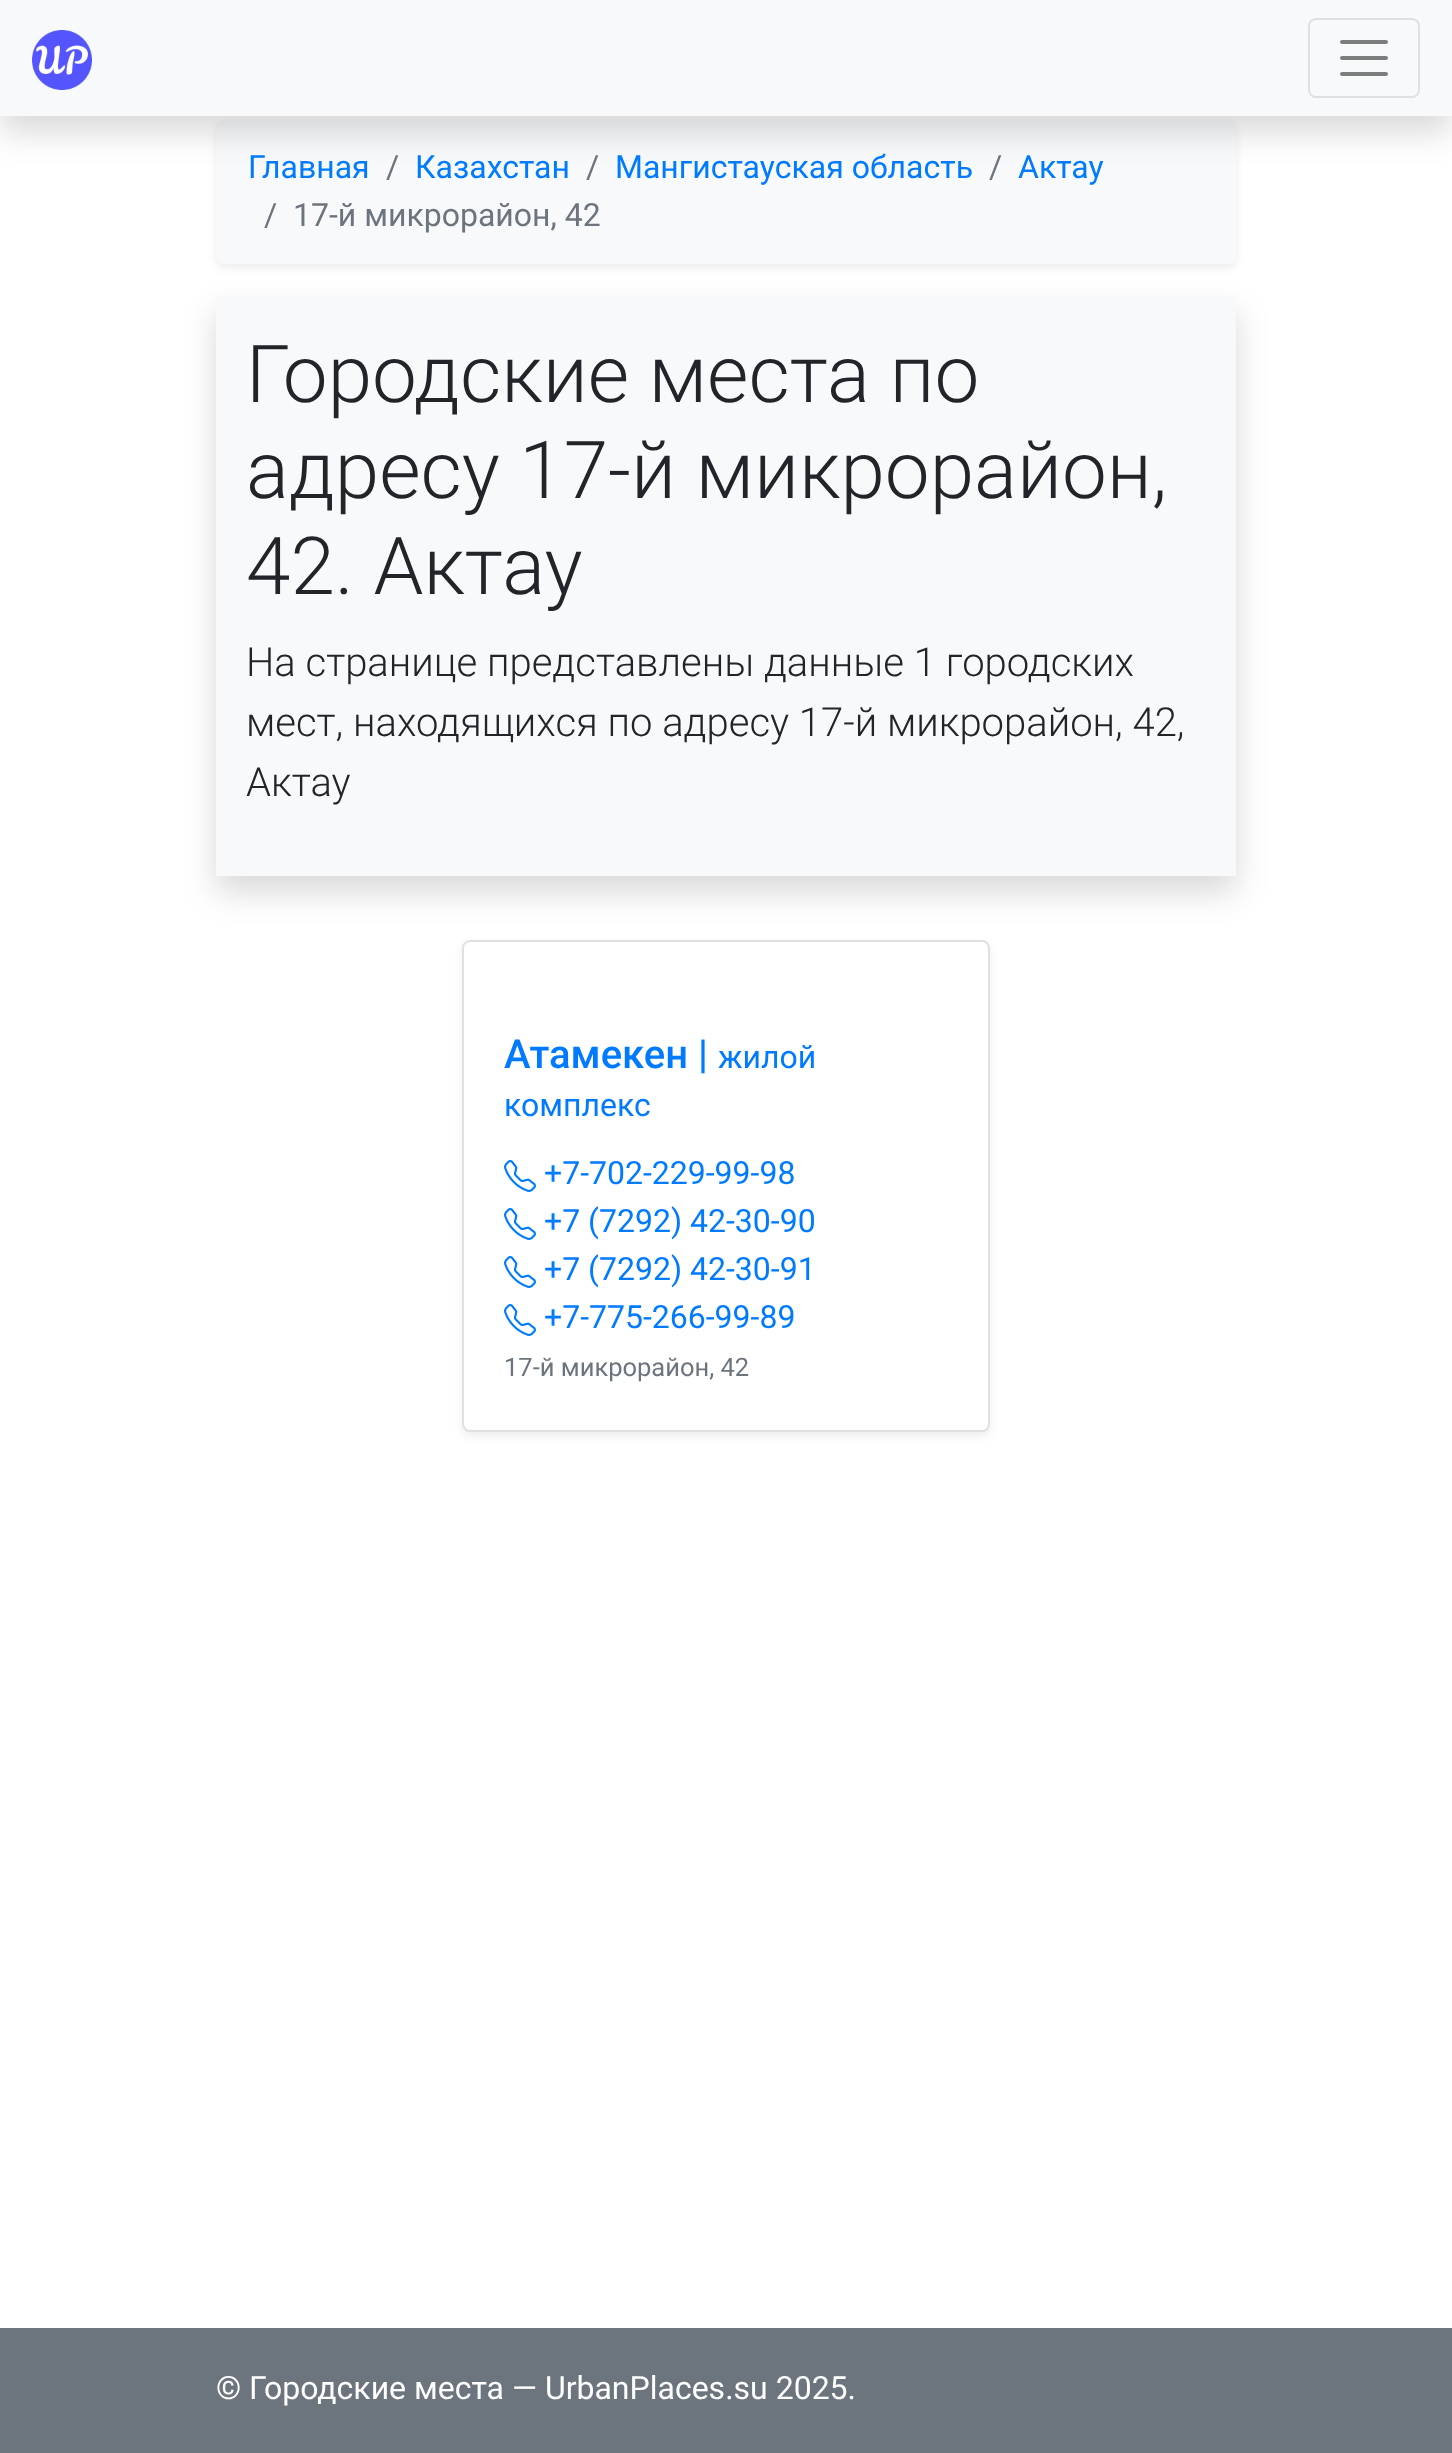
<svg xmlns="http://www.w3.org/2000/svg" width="1452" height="2453">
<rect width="100%" height="100%" fill="#fff"/>
<rect x="216" y="124" width="1020" height="144" rx="8" fill="#00000012" filter="blur(4px)"/>
<rect x="216" y="120" width="1020" height="144" rx="8" fill="#f8f9fa"/>
<rect y="16" width="1452" height="116" fill="#00000026" filter="blur(16px)"/>
<rect width="1452" height="116" fill="#f8f9fa"/>
<image x="32" y="30" width="60" height="60" href="media/1.png"/>
<rect x="1309" y="19" width="110" height="78" rx="7" fill="none" stroke="#dfe0e1" stroke-width="2"/>
<path d="M1342 42h44m-44 16h44m-44 16h44" fill="none" stroke="#7c7d7d" stroke-width="4" stroke-linecap="round"/>
<text x="248" y="178" style="font-family:Roboto;font-size:32px;fill:#007bff">Главная</text>
<text x="386" y="178" style="font-family:Roboto;font-size:32px;fill:#6c757d">/</text>
<text x="415" y="178" style="font-family:Roboto;font-size:32px;fill:#007bff">Казахстан</text>
<text x="586" y="178" style="font-family:Roboto;font-size:32px;fill:#6c757d">/</text>
<text x="615" y="178" style="font-family:Roboto;font-size:32px;fill:#007bff">Мангистауская область</text>
<text x="989" y="178" style="font-family:Roboto;font-size:32px;fill:#6c757d">/</text>
<text x="1018" y="178" style="font-family:Roboto;font-size:32px;fill:#007bff">Актау</text>
<text x="264" y="226" style="font-family:Roboto;font-size:32px;fill:#6c757d">/</text>
<text x="293" y="226" style="font-family:Roboto;font-size:32px;fill:#6c757d">17-й микрорайон, 42</text>
<rect x="216" y="312" width="1020" height="580" fill="#00000026" filter="blur(16px)"/>
<rect x="216" y="296" width="1020" height="580" fill="#f8f9fa"/>
<text x="246" y="402" style="font-family:Roboto;font-size:80px;font-weight:300;fill:#212529">Городские места по</text>
<text x="246" y="498" style="font-family:Roboto;font-size:80px;font-weight:300;fill:#212529">адресу 17-й микрорайон,</text>
<text x="246" y="594" style="font-family:Roboto;font-size:80px;font-weight:300;fill:#212529">42. Актау</text>
<text x="246" y="676" style="font-family:Roboto;font-size:40px;font-weight:300;fill:#212529">На странице представлены данные 1 городских</text>
<text x="246" y="736" style="font-family:Roboto;font-size:40px;font-weight:300;fill:#212529">мест, находящихся по адресу 17-й микрорайон, 42,</text>
<text x="246" y="796" style="font-family:Roboto;font-size:40px;font-weight:300;fill:#212529">Актау</text>
<rect x="462" y="944" width="528" height="492" rx="8" fill="#00000012" filter="blur(4px)"/>
<rect x="462" y="940" width="528" height="492" rx="8" fill="#fff"/>
<rect x="463" y="941" width="526" height="490" rx="7" fill="none" stroke="#0000001f" stroke-width="2"/>
<text x="504" y="1068" style="font-family:Roboto;font-size:40px;font-weight:500;fill:#007bff">Атамекен |</text>
<text x="718" y="1068" style="font-family:Roboto;font-size:32px;fill:#007bff">жилой</text>
<text x="504" y="1116" style="font-family:Roboto;font-size:32px;fill:#007bff">комплекс</text>
<image x="504" y="1160" width="32" height="32" href="media/2.png"/>
<text x="544" y="1184" style="font-family:Roboto;font-size:32px;fill:#007bff">+7-702-229-99-98</text>
<image x="504" y="1208" width="32" height="32" href="media/2.png"/>
<text x="544" y="1232" style="font-family:Roboto;font-size:32px;fill:#007bff">+7 (7292) 42-30-90</text>
<image x="504" y="1256" width="32" height="32" href="media/2.png"/>
<text x="544" y="1280" style="font-family:Roboto;font-size:32px;fill:#007bff">+7 (7292) 42-30-91</text>
<image x="504" y="1304" width="32" height="32" href="media/2.png"/>
<text x="544" y="1328" style="font-family:Roboto;font-size:32px;fill:#007bff">+7-775-266-99-89</text>
<text x="504" y="1376" style="font-family:Roboto;font-size:25.5px;fill:#6c757d">17-й микрорайон, 42</text>
<rect y="2328" width="1452" height="125" fill="#6c757d"/>
<text x="216" y="2399" style="font-family:Roboto;font-size:32px;fill:#fff">© Городские места ― UrbanPlaces.su 2025.</text>
</svg>
